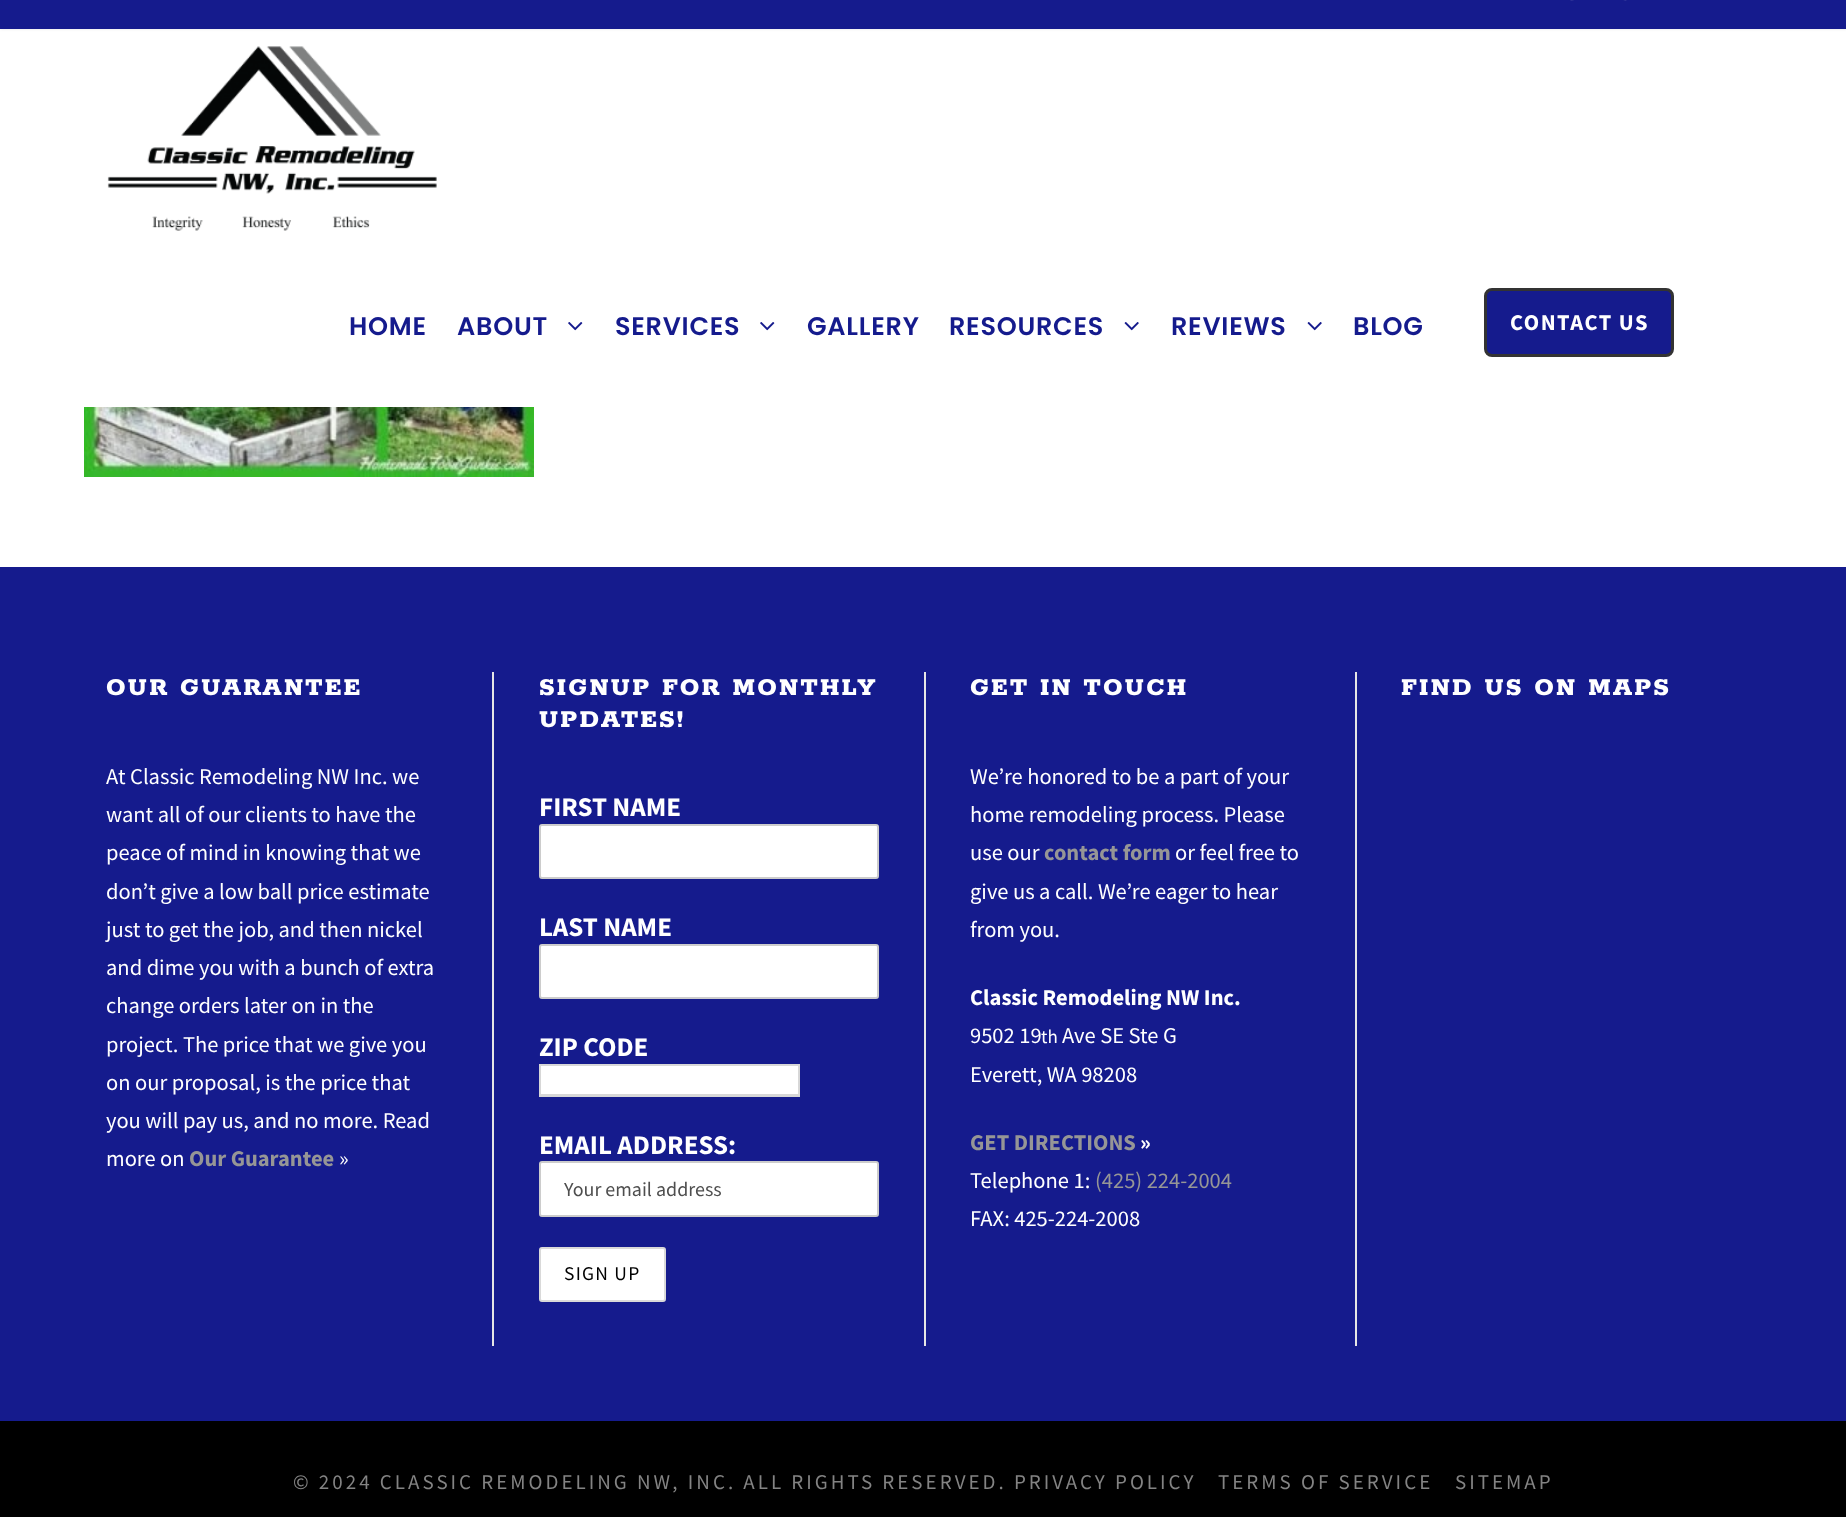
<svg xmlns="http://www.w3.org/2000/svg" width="1846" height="1517">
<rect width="100%" height="100%" fill="#fff"/>
<rect y="-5" width="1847" height="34" fill="#0000001a" filter="blur(1.5px)"/>
<rect width="1846" height="29" fill="#151b8d"/>
<image x="1570" y="0" width="57" height="1" href="media/1.png"/>
<image x="107" y="46" width="330" height="185" href="media/2.png"/>
<text x="349" y="335" style="font-family:Poppins;font-size:25.5px;font-weight:600;letter-spacing:0.75px;fill:#151b8d">HOME</text>
<text x="457" y="335" style="font-family:Poppins;font-size:25.5px;font-weight:600;letter-spacing:0.75px;fill:#151b8d">ABOUT</text>
<image x="568" y="322" width="15" height="9" href="media/3.png"/>
<text x="615" y="335" style="font-family:Poppins;font-size:25.5px;font-weight:600;letter-spacing:0.75px;fill:#151b8d">SERVICES</text>
<image x="760" y="322" width="15" height="9" href="media/3.png"/>
<text x="807" y="335" style="font-family:Poppins;font-size:25.5px;font-weight:600;letter-spacing:0.75px;fill:#151b8d">GALLERY</text>
<text x="949" y="335" style="font-family:Poppins;font-size:25.5px;font-weight:600;letter-spacing:0.75px;fill:#151b8d">RESOURCES</text>
<image x="1124" y="322" width="15" height="9" href="media/4.png"/>
<text x="1171" y="335" style="font-family:Poppins;font-size:25.5px;font-weight:600;letter-spacing:0.75px;fill:#151b8d">REVIEWS</text>
<image x="1307" y="322" width="15" height="9" href="media/4.png"/>
<text x="1353" y="335" style="font-family:Poppins;font-size:25.5px;font-weight:600;letter-spacing:0.75px;fill:#151b8d">BLOG</text>
<rect x="1485.5" y="289.5" width="187" height="66" rx="6.5" fill="#151b8d" stroke="#333" stroke-width="3"/>
<text x="1510" y="330" style="font-family:Source Sans Pro;font-size:22.5px;font-weight:bold;letter-spacing:1.5px;fill:#fff">CONTACT US</text>
<image x="84" y="407" width="450" height="70" href="media/5.png"/>
<rect y="567" width="1846" height="854" fill="#151b8d"/>
<text x="106" y="695" style="font-family:Rokkitt;font-size:27px;font-weight:800;letter-spacing:2.25px;fill:#fff">OUR GUARANTEE</text>
<text x="106" y="784" style="font-family:Source Sans Pro;font-size:22.5px;fill:#fff">At Classic Remodeling NW Inc. we</text>
<text x="106" y="822" style="font-family:Source Sans Pro;font-size:22.5px;fill:#fff">want all of our clients to have the</text>
<text x="106" y="860" style="font-family:Source Sans Pro;font-size:22.5px;fill:#fff">peace of mind in knowing that we</text>
<text x="106" y="899" style="font-family:Source Sans Pro;font-size:22.5px;fill:#fff">don’t give a low ball price estimate</text>
<text x="106" y="937" style="font-family:Source Sans Pro;font-size:22.5px;fill:#fff">just to get the job, and then nickel</text>
<text x="106" y="975" style="font-family:Source Sans Pro;font-size:22.5px;fill:#fff">and dime you with a bunch of extra</text>
<text x="106" y="1013" style="font-family:Source Sans Pro;font-size:22.5px;fill:#fff">change orders later on in the</text>
<text x="106" y="1052" style="font-family:Source Sans Pro;font-size:22.5px;fill:#fff">project. The price that we give you</text>
<text x="106" y="1090" style="font-family:Source Sans Pro;font-size:22.5px;fill:#fff">on our proposal, is the price that</text>
<text x="106" y="1128" style="font-family:Source Sans Pro;font-size:22.5px;fill:#fff">you will pay us, and no more. Read</text>
<text x="106" y="1166" style="font-family:Source Sans Pro;font-size:22.5px;fill:#fff">more on</text>
<text x="189" y="1166" style="font-family:Source Sans Pro;font-size:22.5px;font-weight:bold;fill:#969696">Our Guarantee</text>
<text x="339" y="1166" style="font-family:Source Sans Pro;font-size:22.5px;fill:#fff">»</text>
<rect x="492" y="672" width="2" height="674" fill="#e6e6e6"/>
<text x="539" y="695" style="font-family:Rokkitt;font-size:27px;font-weight:800;letter-spacing:2.25px;fill:#fff">SIGNUP FOR MONTHLY</text>
<text x="539" y="727" style="font-family:Rokkitt;font-size:27px;font-weight:800;letter-spacing:2.25px;fill:#fff">UPDATES!</text>
<text x="539" y="816" style="font-family:Source Sans Pro;font-size:27px;font-weight:bold;fill:#fff">FIRST NAME</text>
<rect x="540" y="825" width="338" height="53" rx="2" fill="#fff" stroke="#ccc" stroke-width="2"/>
<text x="539" y="936" style="font-family:Source Sans Pro;font-size:27px;font-weight:bold;fill:#fff">LAST NAME</text>
<rect x="540" y="945" width="338" height="53" rx="2" fill="#fff" stroke="#ccc" stroke-width="2"/>
<text x="539" y="1056" style="font-family:Source Sans Pro;font-size:27px;font-weight:bold;fill:#fff">ZIP CODE</text>
<rect x="541" y="1066" width="257" height="28" fill="#fff"/>
<rect x="539" y="1064" width="261" height="2" fill="#d7d7d7"/>
<rect x="798" y="1064" width="2" height="33" fill="#d7d7d7"/>
<rect x="539" y="1094" width="261" height="3" fill="#d7d7d7"/>
<rect x="539" y="1064" width="2" height="33" fill="#d7d7d7"/>
<text x="539" y="1154" style="font-family:Source Sans Pro;font-size:27px;font-weight:bold;fill:#fff">EMAIL ADDRESS:</text>
<rect x="540" y="1162" width="338" height="54" rx="2" fill="#fff" stroke="#ccc" stroke-width="2"/>
<text x="564" y="1196" style="font-family:Source Sans Pro;font-size:20px;fill:#4e4e4e">Your email address</text>
<rect x="540" y="1248" width="125" height="53" rx="2" fill="#fff" stroke="#d9d9d9" stroke-width="2"/>
<text x="564" y="1280" style="font-family:Source Sans Pro;font-size:19.5px;letter-spacing:1.25px;fill:#000">SIGN UP</text>
<rect x="924" y="672" width="2" height="674" fill="#e6e6e6"/>
<text x="970" y="695" style="font-family:Rokkitt;font-size:27px;font-weight:800;letter-spacing:2.25px;fill:#fff">GET IN TOUCH</text>
<text x="970" y="784" style="font-family:Source Sans Pro;font-size:22.5px;fill:#fff">We’re honored to be a part of your</text>
<text x="970" y="822" style="font-family:Source Sans Pro;font-size:22.5px;fill:#fff">home remodeling process. Please</text>
<text x="970" y="860" style="font-family:Source Sans Pro;font-size:22.5px;fill:#fff">use our</text>
<text x="1044" y="860" style="font-family:Source Sans Pro;font-size:22.5px;font-weight:bold;fill:#969696">contact form</text>
<text x="1175" y="860" style="font-family:Source Sans Pro;font-size:22.5px;fill:#fff">or feel free to</text>
<text x="970" y="899" style="font-family:Source Sans Pro;font-size:22.5px;fill:#fff">give us a call. We’re eager to hear</text>
<text x="970" y="937" style="font-family:Source Sans Pro;font-size:22.5px;fill:#fff">from you.</text>
<text x="970" y="1005" style="font-family:Source Sans Pro;font-size:22.5px;font-weight:bold;fill:#fff">Classic Remodeling NW Inc.</text>
<text x="970" y="1043" style="font-family:Source Sans Pro;font-size:22.5px;fill:#fff">9502 19</text>
<text x="1041" y="1043" style="font-family:Source Sans Pro;font-size:19px;fill:#fff">th</text>
<text x="1062" y="1043" style="font-family:Source Sans Pro;font-size:22.5px;fill:#fff">Ave SE Ste G</text>
<text x="970" y="1082" style="font-family:Source Sans Pro;font-size:22.5px;fill:#fff">Everett, WA 98208</text>
<text x="970" y="1150" style="font-family:Source Sans Pro;font-size:22.5px;font-weight:bold;fill:#969696">GET DIRECTIONS</text>
<text x="1140" y="1150" style="font-family:Source Sans Pro;font-size:22.5px;font-weight:bold;fill:#fff">»</text>
<text x="970" y="1188" style="font-family:Source Sans Pro;font-size:22.5px;fill:#fff">Telephone 1:</text>
<text x="1095" y="1188" style="font-family:Source Sans Pro;font-size:22.5px;fill:#969696">(425) 224-2004</text>
<text x="970" y="1226" style="font-family:Source Sans Pro;font-size:22.5px;fill:#fff">FAX: 425-224-2008</text>
<rect x="1355" y="672" width="2" height="674" fill="#e6e6e6"/>
<text x="1401" y="695" style="font-family:Rokkitt;font-size:27px;font-weight:800;letter-spacing:2.25px;fill:#fff">FIND US ON MAPS</text>
<rect y="1421" width="1846" height="96" fill="#000"/>
<text x="293" y="1489" style="font-family:Source Sans Pro;font-size:21px;letter-spacing:3px;fill:#838383">© 2024 CLASSIC REMODELING NW, INC. ALL RIGHTS RESERVED. PRIVACY POLICY</text>
<text x="1218" y="1489" style="font-family:Source Sans Pro;font-size:21px;letter-spacing:3px;fill:#838383">TERMS OF SERVICE</text>
<text x="1455" y="1489" style="font-family:Source Sans Pro;font-size:21px;letter-spacing:3px;fill:#838383">SITEMAP</text>
</svg>
